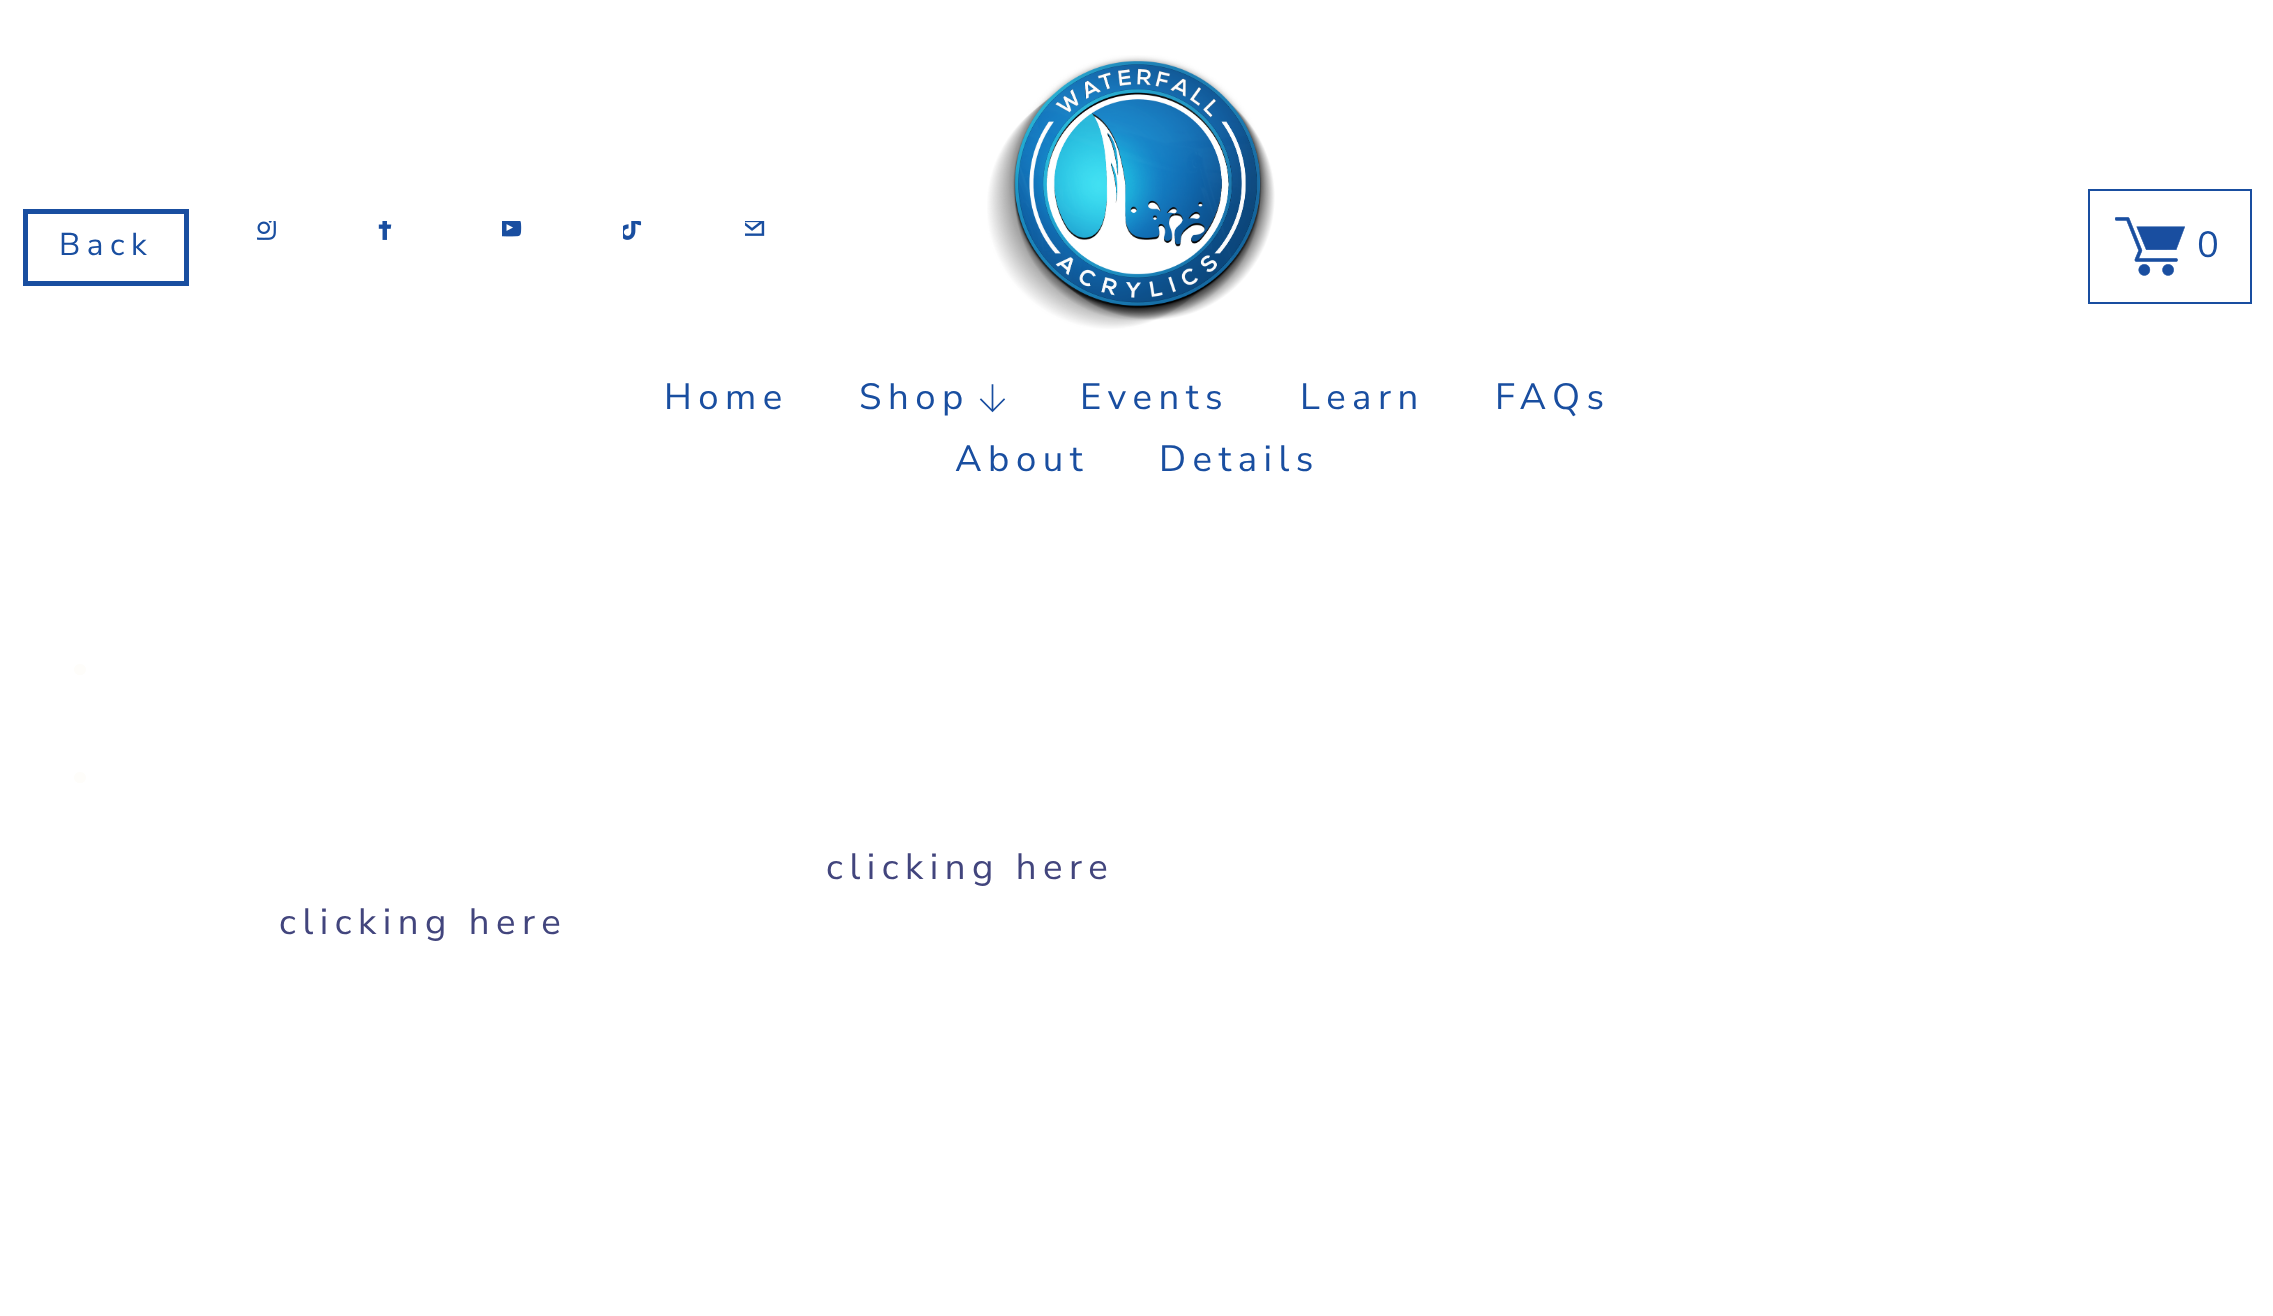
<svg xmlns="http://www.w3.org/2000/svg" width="2273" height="1316">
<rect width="100%" height="100%" fill="#fff"/>
<rect x="25.5" y="211.5" width="161" height="72" fill="none" stroke="#194ea0" stroke-width="5"/>
<text x="59" y="255" style="font-family:Nunito Sans;font-size:31.5px;letter-spacing:6.5px;fill:#194ea0">Back</text>
<image x="257" y="221" width="19" height="19" href="media/1.png"/>
<image x="378" y="221" width="14" height="19" href="media/2.png"/>
<image x="502" y="221" width="20" height="16" href="media/3.png"/>
<image x="623" y="221" width="19" height="19" href="media/4.png"/>
<image x="745" y="221" width="20" height="15" href="media/5.png"/>
<rect x="2089" y="190" width="162" height="113" fill="none" stroke="#194ea0" stroke-width="2"/>
<image x="2115" y="217" width="70" height="59" href="media/6.png"/>
<text x="2197" y="257" style="font-family:Nunito Sans;font-size:36.5px;letter-spacing:6.5px;fill:#194ea0">0</text>
<image x="987" y="55" width="288" height="274" href="media/7.png"/>
<text x="664" y="409" style="font-family:Nunito Sans;font-size:36.5px;letter-spacing:6.5px;fill:#194ea0">Home</text>
<text x="859" y="409" style="font-family:Nunito Sans;font-size:36.5px;letter-spacing:6.5px;fill:#194ea0">Shop</text>
<path d="M992.5 410.5v-25.5m11.5 14.5l-11.5 11.5l-11.5-11.5" fill="none" stroke="#194ea0" stroke-width="1.7" stroke-linecap="square"/>
<text x="1080" y="409" style="font-family:Nunito Sans;font-size:36.5px;letter-spacing:6.5px;fill:#194ea0">Events</text>
<text x="1300" y="409" style="font-family:Nunito Sans;font-size:36.5px;letter-spacing:6.5px;fill:#194ea0">Learn</text>
<text x="1495" y="409" style="font-family:Nunito Sans;font-size:36.5px;letter-spacing:6.5px;fill:#194ea0">FAQs</text>
<text x="955" y="471" style="font-family:Nunito Sans;font-size:36.5px;letter-spacing:6.5px;fill:#194ea0">About</text>
<text x="1159" y="471" style="font-family:Nunito Sans;font-size:36.5px;letter-spacing:6.5px;fill:#194ea0">Details</text>
<rect x="74" y="664" width="12" height="11" rx="5.5" fill="#fefdfa"/>
<rect x="74" y="772" width="12" height="11" rx="5.5" fill="#fefdfa"/>
<text x="826" y="879" style="font-family:Nunito Sans;font-size:36.5px;letter-spacing:6.5px;fill:#42457d">clicking here</text>
<text x="279" y="934" style="font-family:Nunito Sans;font-size:36.5px;letter-spacing:6.5px;fill:#42457d">clicking here</text>
</svg>
